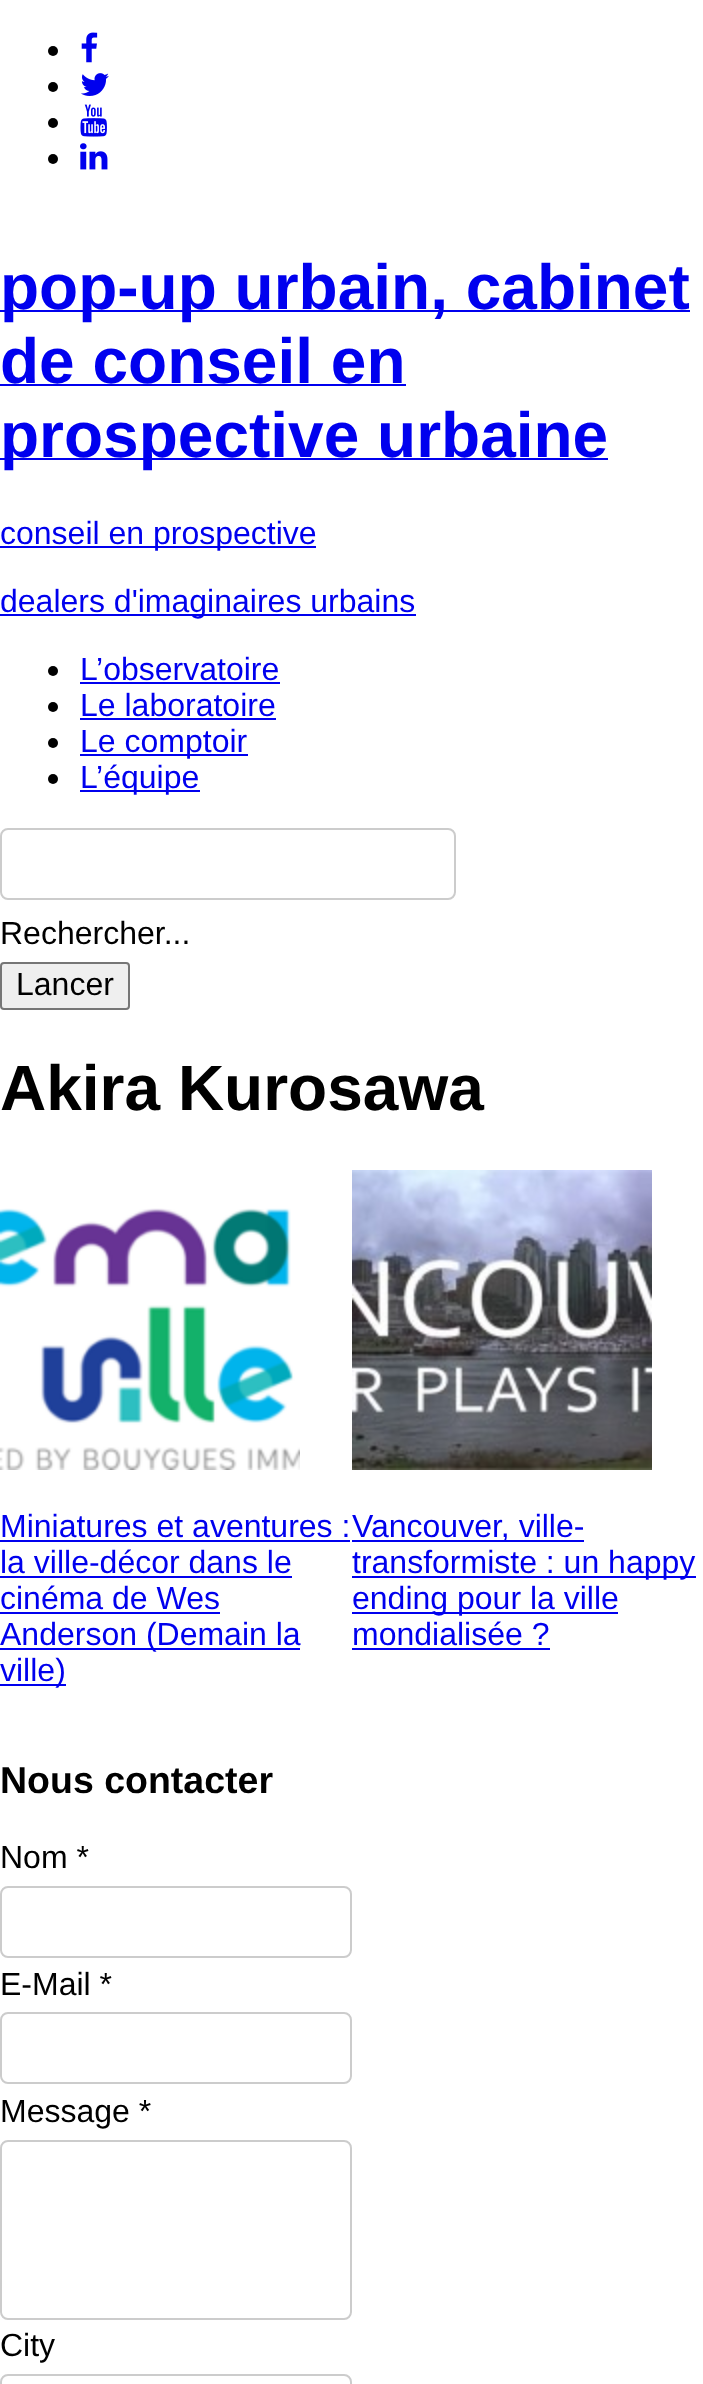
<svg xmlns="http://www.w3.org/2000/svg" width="703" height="2384">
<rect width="100%" height="100%" fill="#fff"/>
<circle cx="53" cy="51" r="5" fill="#000"/>
<image x="81" y="32" width="17" height="31" href="media/1.png"/>
<circle cx="53" cy="87" r="5" fill="#000"/>
<image x="81" y="73" width="28" height="23" href="media/2.png"/>
<circle cx="53" cy="123" r="5" fill="#000"/>
<image x="80" y="104" width="27" height="33" href="media/3.png"/>
<circle cx="53" cy="159" r="5" fill="#000"/>
<image x="80" y="143" width="28" height="27" href="media/4.png"/>
<rect y="310" width="690" height="2" fill="#00e"/>
<text x="0" y="309" style="font-family:Liberation Sans;font-size:64px;font-weight:bold;fill:#00e">pop-up urbain, cabinet</text>
<text x="0" y="383" style="font-family:Liberation Sans;font-size:64px;font-weight:bold;fill:#00e">de conseil en</text>
<rect y="384" width="406" height="2" fill="#00e"/>
<rect y="458" width="608" height="2" fill="#00e"/>
<text x="0" y="457" style="font-family:Liberation Sans;font-size:64px;font-weight:bold;fill:#00e">prospective urbaine</text>
<rect y="546" width="316" height="2" fill="#00e"/>
<text x="0" y="544" style="font-family:Liberation Sans;font-size:32px;fill:#00e">conseil en prospective</text>
<rect y="614" width="416" height="2" fill="#00e"/>
<text x="0" y="612" style="font-family:Liberation Sans;font-size:32px;fill:#00e">dealers d'imaginaires urbains</text>
<circle cx="53" cy="671" r="5" fill="#000"/>
<text x="80" y="680" style="font-family:Liberation Sans;font-size:32px;fill:#00e">L’observatoire</text>
<rect x="80" y="682" width="200" height="2" fill="#00e"/>
<circle cx="53" cy="707" r="5" fill="#000"/>
<text x="80" y="716" style="font-family:Liberation Sans;font-size:32px;fill:#00e">Le laboratoire</text>
<rect x="80" y="718" width="196" height="2" fill="#00e"/>
<circle cx="53" cy="743" r="5" fill="#000"/>
<rect x="80" y="754" width="168" height="2" fill="#00e"/>
<text x="80" y="752" style="font-family:Liberation Sans;font-size:32px;fill:#00e">Le comptoir</text>
<circle cx="53" cy="779" r="5" fill="#000"/>
<rect x="80" y="790" width="120" height="2" fill="#00e"/>
<text x="80" y="788" style="font-family:Liberation Sans;font-size:32px;fill:#00e">L’équipe</text>
<rect x="1" y="829" width="454" height="70" rx="7" fill="none" stroke="#ccc" stroke-width="2"/>
<text x="0" y="944" style="font-family:Liberation Sans;font-size:32px;fill:#000">Rechercher...</text>
<rect x="1" y="963" width="128" height="46" rx="3" fill="#efefef" stroke="#767676" stroke-width="2"/>
<text x="16" y="995" style="font-family:Liberation Sans;font-size:32px;fill:#000">Lancer</text>
<text x="0" y="1110" style="font-family:Liberation Sans;font-size:64px;font-weight:bold;fill:#000">Akira Kurosawa</text>
<image x="0" y="1208" width="300" height="262" href="media/5.png"/>
<text x="0" y="1537" style="font-family:Liberation Sans;font-size:32px;fill:#00e">Miniatures et aventures :</text>
<rect y="1540" width="350" height="2" fill="#00e"/>
<text x="0" y="1573" style="font-family:Liberation Sans;font-size:32px;fill:#00e">la ville-décor dans le</text>
<rect y="1576" width="292" height="2" fill="#00e"/>
<text x="0" y="1609" style="font-family:Liberation Sans;font-size:32px;fill:#00e">cinéma de Wes</text>
<rect y="1612" width="220" height="2" fill="#00e"/>
<rect y="1648" width="300" height="2" fill="#00e"/>
<text x="0" y="1645" style="font-family:Liberation Sans;font-size:32px;fill:#00e">Anderson (Demain la</text>
<rect y="1684" width="66" height="2" fill="#00e"/>
<text x="0" y="1681" style="font-family:Liberation Sans;font-size:32px;fill:#00e">ville)</text>
<image x="352" y="1170" width="300" height="300" href="media/6.png"/>
<rect x="352" y="1540" width="232" height="2" fill="#00e"/>
<text x="352" y="1537" style="font-family:Liberation Sans;font-size:32px;fill:#00e">Vancouver, ville-</text>
<rect x="352" y="1576" width="344" height="2" fill="#00e"/>
<text x="352" y="1573" style="font-family:Liberation Sans;font-size:32px;fill:#00e">transformiste : un happy</text>
<rect x="352" y="1612" width="266" height="2" fill="#00e"/>
<text x="352" y="1609" style="font-family:Liberation Sans;font-size:32px;fill:#00e">ending pour la ville</text>
<text x="352" y="1645" style="font-family:Liberation Sans;font-size:32px;fill:#00e">mondialisée ?</text>
<rect x="352" y="1648" width="198" height="2" fill="#00e"/>
<text x="0" y="1793" style="font-family:Liberation Sans;font-size:37.5px;font-weight:bold;fill:#000">Nous contacter</text>
<text x="0" y="1868" style="font-family:Liberation Sans;font-size:32px;fill:#000">Nom *</text>
<rect x="1" y="1887" width="350" height="70" rx="7" fill="none" stroke="#ccc" stroke-width="2"/>
<text x="0" y="1995" style="font-family:Liberation Sans;font-size:32px;fill:#000">E-Mail *</text>
<rect x="1" y="2013" width="350" height="70" rx="7" fill="none" stroke="#ccc" stroke-width="2"/>
<text x="0" y="2122" style="font-family:Liberation Sans;font-size:32px;fill:#000">Message *</text>
<rect x="1" y="2141" width="350" height="178" rx="7" fill="none" stroke="#ccc" stroke-width="2"/>
<text x="0" y="2356" style="font-family:Liberation Sans;font-size:32px;fill:#000">City</text>
<rect x="1" y="2375" width="350" height="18" rx="7" fill="none" stroke="#ccc" stroke-width="2"/>
</svg>
